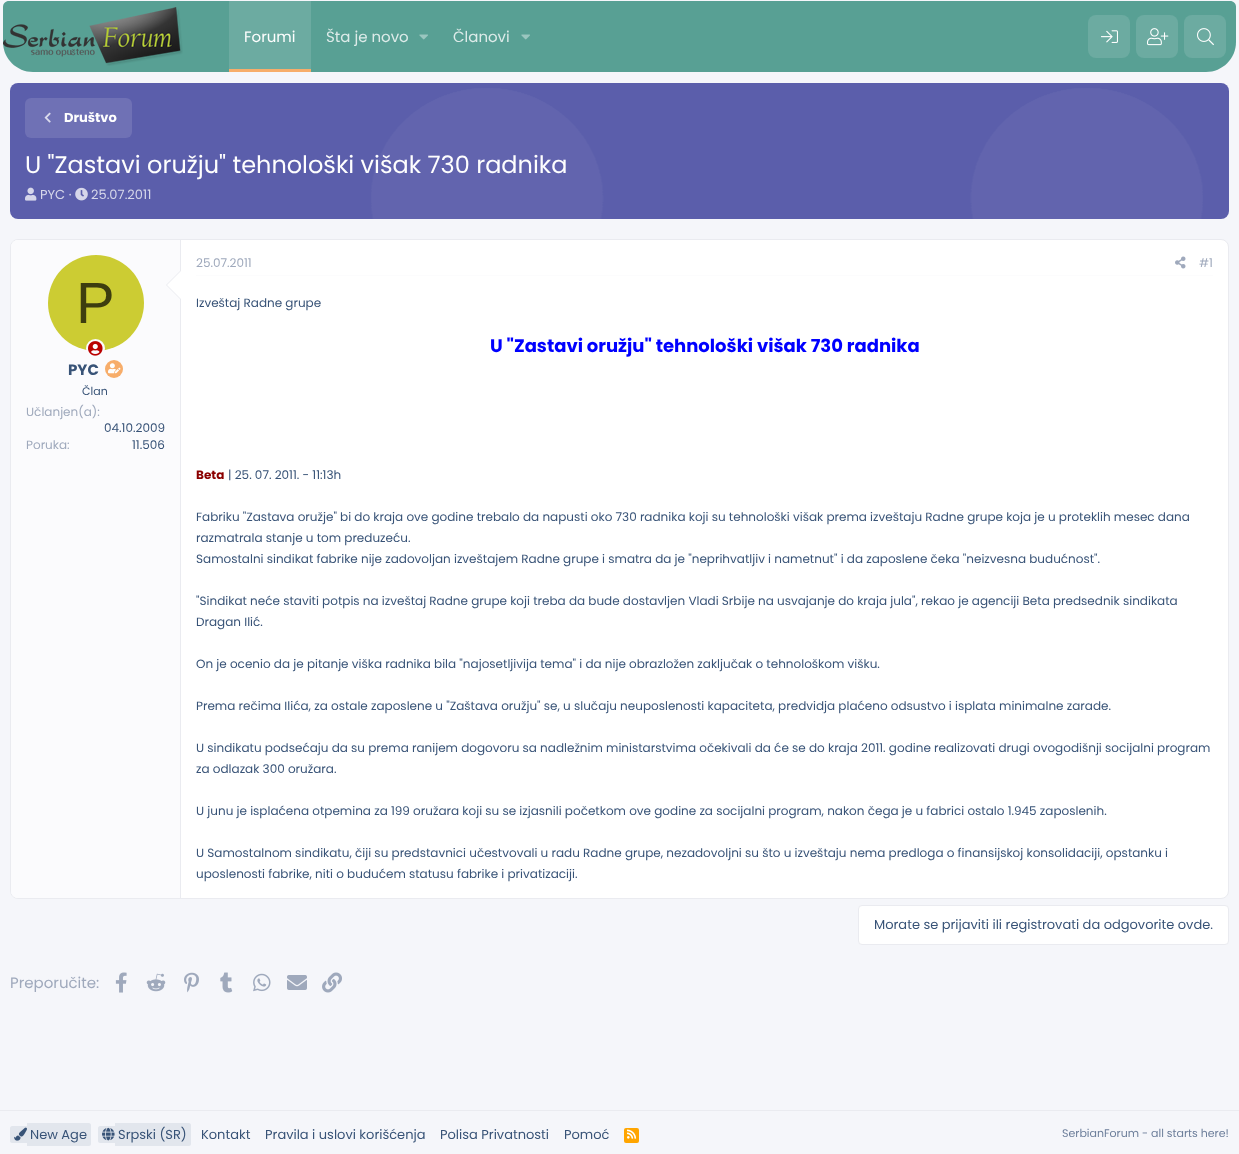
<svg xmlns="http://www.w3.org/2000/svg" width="1239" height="1154">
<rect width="100%" height="100%" fill="#f5f6fa"/>
<path d="M9 1h1221c3.5 0 6 2.5 6 6v35c0 16.5-13.5 30-30 30h-1173c-16.5 0-30-13.5-30-30v-35c0-3.5 2.5-6 6-6z" fill="#58a094"/>
<image x="3" y="7" width="180" height="59" href="media/1.png"/>
<rect x="229" y="1" width="82" height="68" fill="#6caba1"/>
<rect x="229" y="69" width="82" height="3" fill="#f7ad6a"/>
<text x="244" y="42" style="font-family:Poppins;font-size:15px;fill:#fefefe">Forumi</text>
<text x="326" y="42" style="font-family:Poppins;font-size:15px;fill:#ddebe9">Šta je novo</text>
<image x="419" y="34" width="9" height="6" href="media/2.png"/>
<text x="453" y="42" style="font-family:Poppins;font-size:15px;fill:#ddebe9">Članovi</text>
<image x="521" y="34" width="9" height="6" href="media/2.png"/>
<rect x="1088" y="15" width="42" height="43" rx="8" fill="#6caba1"/>
<image x="1101" y="30" width="17" height="13" href="media/3.png"/>
<rect x="1136" y="15" width="42" height="43" rx="8" fill="#6caba1"/>
<image x="1147" y="28" width="22" height="18" href="media/4.png"/>
<rect x="1184" y="15" width="42" height="43" rx="8" fill="#6caba1"/>
<image x="1197" y="28" width="17" height="18" href="media/5.png"/>
<rect x="10" y="83" width="1219" height="136" rx="8" fill="#5b5eab"/>
<image x="371" y="88" width="832" height="131" href="media/6.png"/>
<rect x="25" y="98" width="107" height="40" rx="6" fill="#6f71b5"/>
<image x="44" y="112" width="7" height="11" href="media/7.png"/>
<text x="64" y="122" style="font-family:Poppins;font-size:13px;font-weight:bold;fill:#fefefe">Društvo</text>
<text x="25" y="173" style="font-family:Poppins;font-size:24px;fill:#fefefe">U "Zastavi oružju" tehnološki višak 730 radnika</text>
<image x="25" y="187" width="12" height="14" href="media/8.png"/>
<text x="40" y="199" style="font-family:Poppins;font-size:13px;fill:#d6d7ea">PYC ·</text>
<image x="75" y="187" width="13" height="14" href="media/9.png"/>
<text x="91" y="199" style="font-family:Poppins;font-size:13px;fill:#d6d7ea">25.07.2011</text>
<rect x="10.5" y="239.5" width="1218" height="659" rx="7.5" fill="#fff" stroke="#eaebf0"/>
<path d="M18 240h163v658h-163c-4 0-7-3-7-7v-644c0-4 3-7 7-7z" fill="#fbfbfd"/>
<rect x="180" y="240" width="1" height="658" fill="#eaebf0"/>
<circle cx="96" cy="303" r="48" fill="#cc3"/>
<text x="76" y="323" style="font-family:Liberation Sans;font-size:58px;fill:#3d3d0f">P</text>
<circle cx="95.5" cy="348.5" r="8.5" fill="#fbfbfd" stroke="#fbfbfd" stroke-width="2"/>
<image x="88" y="341" width="15" height="15" href="media/10.png"/>
<path d="M181 270v30l-15-15z" fill="#eaebf0"/>
<path d="M181 271v28l-14-14z" fill="#fff"/>
<text x="68" y="375" style="font-family:Poppins;font-size:15px;font-weight:bold;fill:#385377">PYC</text>
<circle cx="114" cy="369" r="9" fill="#f7ad6a"/>
<image x="108" y="363" width="13" height="11" href="media/11.png"/>
<text x="82" y="395" style="font-family:Poppins;font-size:11px;fill:#385377">Član</text>
<text x="26" y="416" style="font-family:Poppins;font-size:12px;fill:#9fa9bc">Učlanjen(a):</text>
<text x="104" y="432" style="font-family:Poppins;font-size:12px;fill:#385377">04.10.2009</text>
<text x="26" y="449" style="font-family:Poppins;font-size:12px;fill:#9fa9bc">Poruka:</text>
<text x="132" y="449" style="font-family:Poppins;font-size:12px;fill:#385377">11.506</text>
<rect x="196" y="275" width="1017" height="1" fill="#fcfcfd"/>
<text x="196" y="267" style="font-family:Poppins;font-size:12px;fill:#9fa9bc">25.07.2011</text>
<image x="1175" y="256" width="11" height="13" href="media/12.png"/>
<text x="1199" y="267" style="font-family:Poppins;font-size:12px;fill:#9fa9bc">#1</text>
<text x="196" y="307" style="font-family:Poppins;font-size:12px;fill:#385377">Izveštaj Radne grupe</text>
<text x="490" y="352" style="font-family:Poppins;font-size:18px;font-weight:bold;fill:#00f">U "Zastavi oružju" tehnološki višak 730 radnika</text>
<text x="196" y="479" style="font-family:Poppins;font-size:12px;font-weight:bold;fill:#8b0000">Beta</text>
<text x="228" y="479" style="font-family:Poppins;font-size:12px;fill:#385377">| 25. 07. 2011. - 11:13h</text>
<text x="196" y="521" style="font-family:Poppins;font-size:12px;fill:#385377">Fabriku "Zastava oružje" bi do kraja ove godine trebalo da napusti oko 730 radnika koji su tehnološki višak prema izveštaju Radne grupe koja je u proteklih mesec dana</text>
<text x="196" y="542" style="font-family:Poppins;font-size:12px;fill:#385377">razmatrala stanje u tom preduzeću.</text>
<text x="196" y="563" style="font-family:Poppins;font-size:12px;fill:#385377">Samostalni sindikat fabrike nije zadovoljan izveštajem Radne grupe i smatra da je "neprihvatljiv i nametnut" i da zaposlene čeka "neizvesna budućnost".</text>
<text x="196" y="605" style="font-family:Poppins;font-size:12px;fill:#385377">"Sindikat neće staviti potpis na izveštaj Radne grupe koji treba da bude dostavljen Vladi Srbije na usvajanje do kraja jula", rekao je agenciji Beta predsednik sindikata</text>
<text x="196" y="626" style="font-family:Poppins;font-size:12px;fill:#385377">Dragan Ilić.</text>
<text x="196" y="668" style="font-family:Poppins;font-size:12px;fill:#385377">On je ocenio da je pitanje viška radnika bila "najosetljivija tema" i da nije obrazložen zaključak o tehnološkom višku.</text>
<text x="196" y="710" style="font-family:Poppins;font-size:12px;fill:#385377">Prema rečima Ilića, za ostale zaposlene u "Zaštava oružju" se, u slučaju neuposlenosti kapaciteta, predvidja plaćeno odsustvo i isplata minimalne zarade.</text>
<text x="196" y="752" style="font-family:Poppins;font-size:12px;fill:#385377">U sindikatu podsećaju da su prema ranijem dogovoru sa nadležnim ministarstvima očekivali da će se do kraja 2011. godine realizovati drugi ovogodišnji socijalni program</text>
<text x="196" y="773" style="font-family:Poppins;font-size:12px;fill:#385377">za odlazak 300 oružara.</text>
<text x="196" y="815" style="font-family:Poppins;font-size:12px;fill:#385377">U junu je isplaćena otpemina za 199 oružara koji su se izjasnili početkom ove godine za socijalni program, nakon čega je u fabrici ostalo 1.945 zaposlenih.</text>
<text x="196" y="857" style="font-family:Poppins;font-size:12px;fill:#385377">U Samostalnom sindikatu, čiji su predstavnici učestvovali u radu Radne grupe, nezadovoljni su što u izveštaju nema predloga o finansijskoj konsolidaciji, opstanku i</text>
<text x="196" y="878" style="font-family:Poppins;font-size:12px;fill:#385377">uposlenosti fabrike, niti o budućem statusu fabrike i privatizaciji.</text>
<rect x="858.5" y="905.5" width="370" height="39" rx="3.5" fill="#fff" stroke="#eaebf0"/>
<text x="874" y="929" style="font-family:Poppins;font-size:13px;fill:#385377">Morate se prijaviti ili registrovati da odgovorite ovde.</text>
<text x="10" y="988" style="font-family:Poppins;font-size:15px;fill:#9fa9bc">Preporučite:</text>
<image x="115" y="972" width="12" height="21" href="media/13.png"/>
<image x="146" y="973" width="20" height="19" href="media/14.png"/>
<image x="184" y="972" width="15" height="21" href="media/15.png"/>
<image x="220" y="972" width="13" height="21" href="media/16.png"/>
<image x="253" y="973" width="18" height="19" href="media/17.png"/>
<image x="287" y="975" width="20" height="15" href="media/18.png"/>
<image x="322" y="972" width="20" height="21" href="media/19.png"/>
<rect y="1110" width="1239" height="1" fill="#eaebf0"/>
<path d="M12 1126h15v17h-15c-1 0-2-1-2-2v-13c0-1 1-2 2-2z" fill="#e2e6ed"/>
<path d="M27 1123h62c1 0 2 1 2 2v19c0 1-1 2-2 2h-62z" fill="#e2e6ed"/>
<image x="14" y="1127" width="13" height="14" href="media/20.png"/>
<text x="30" y="1139" style="font-family:Poppins;font-size:13px;fill:#385377">New Age</text>
<path d="M100 1126h15v17h-15c-1 0-2-1-2-2v-13c0-1 1-2 2-2z" fill="#e2e6ed"/>
<path d="M115 1123h74c1 0 2 1 2 2v19c0 1-1 2-2 2h-74z" fill="#e2e6ed"/>
<image x="102" y="1127" width="13" height="14" href="media/21.png"/>
<text x="118" y="1139" style="font-family:Poppins;font-size:13px;fill:#385377">Srpski (SR)</text>
<text x="201" y="1139" style="font-family:Poppins;font-size:13px;fill:#385377">Kontakt</text>
<text x="265" y="1139" style="font-family:Poppins;font-size:13px;fill:#385377">Pravila i uslovi korišćenja</text>
<text x="440" y="1139" style="font-family:Poppins;font-size:13px;fill:#385377">Polisa Privatnosti</text>
<text x="564" y="1139" style="font-family:Poppins;font-size:13px;fill:#385377">Pomoć</text>
<rect x="624" y="1128" width="15" height="15" rx="2" fill="#ffa500"/>
<image x="627" y="1129" width="10" height="10" href="media/22.png"/>
<text x="1062" y="1137" style="font-family:Poppins;font-size:11px;fill:#6c7e9a">SerbianForum - all starts here!</text>
</svg>
